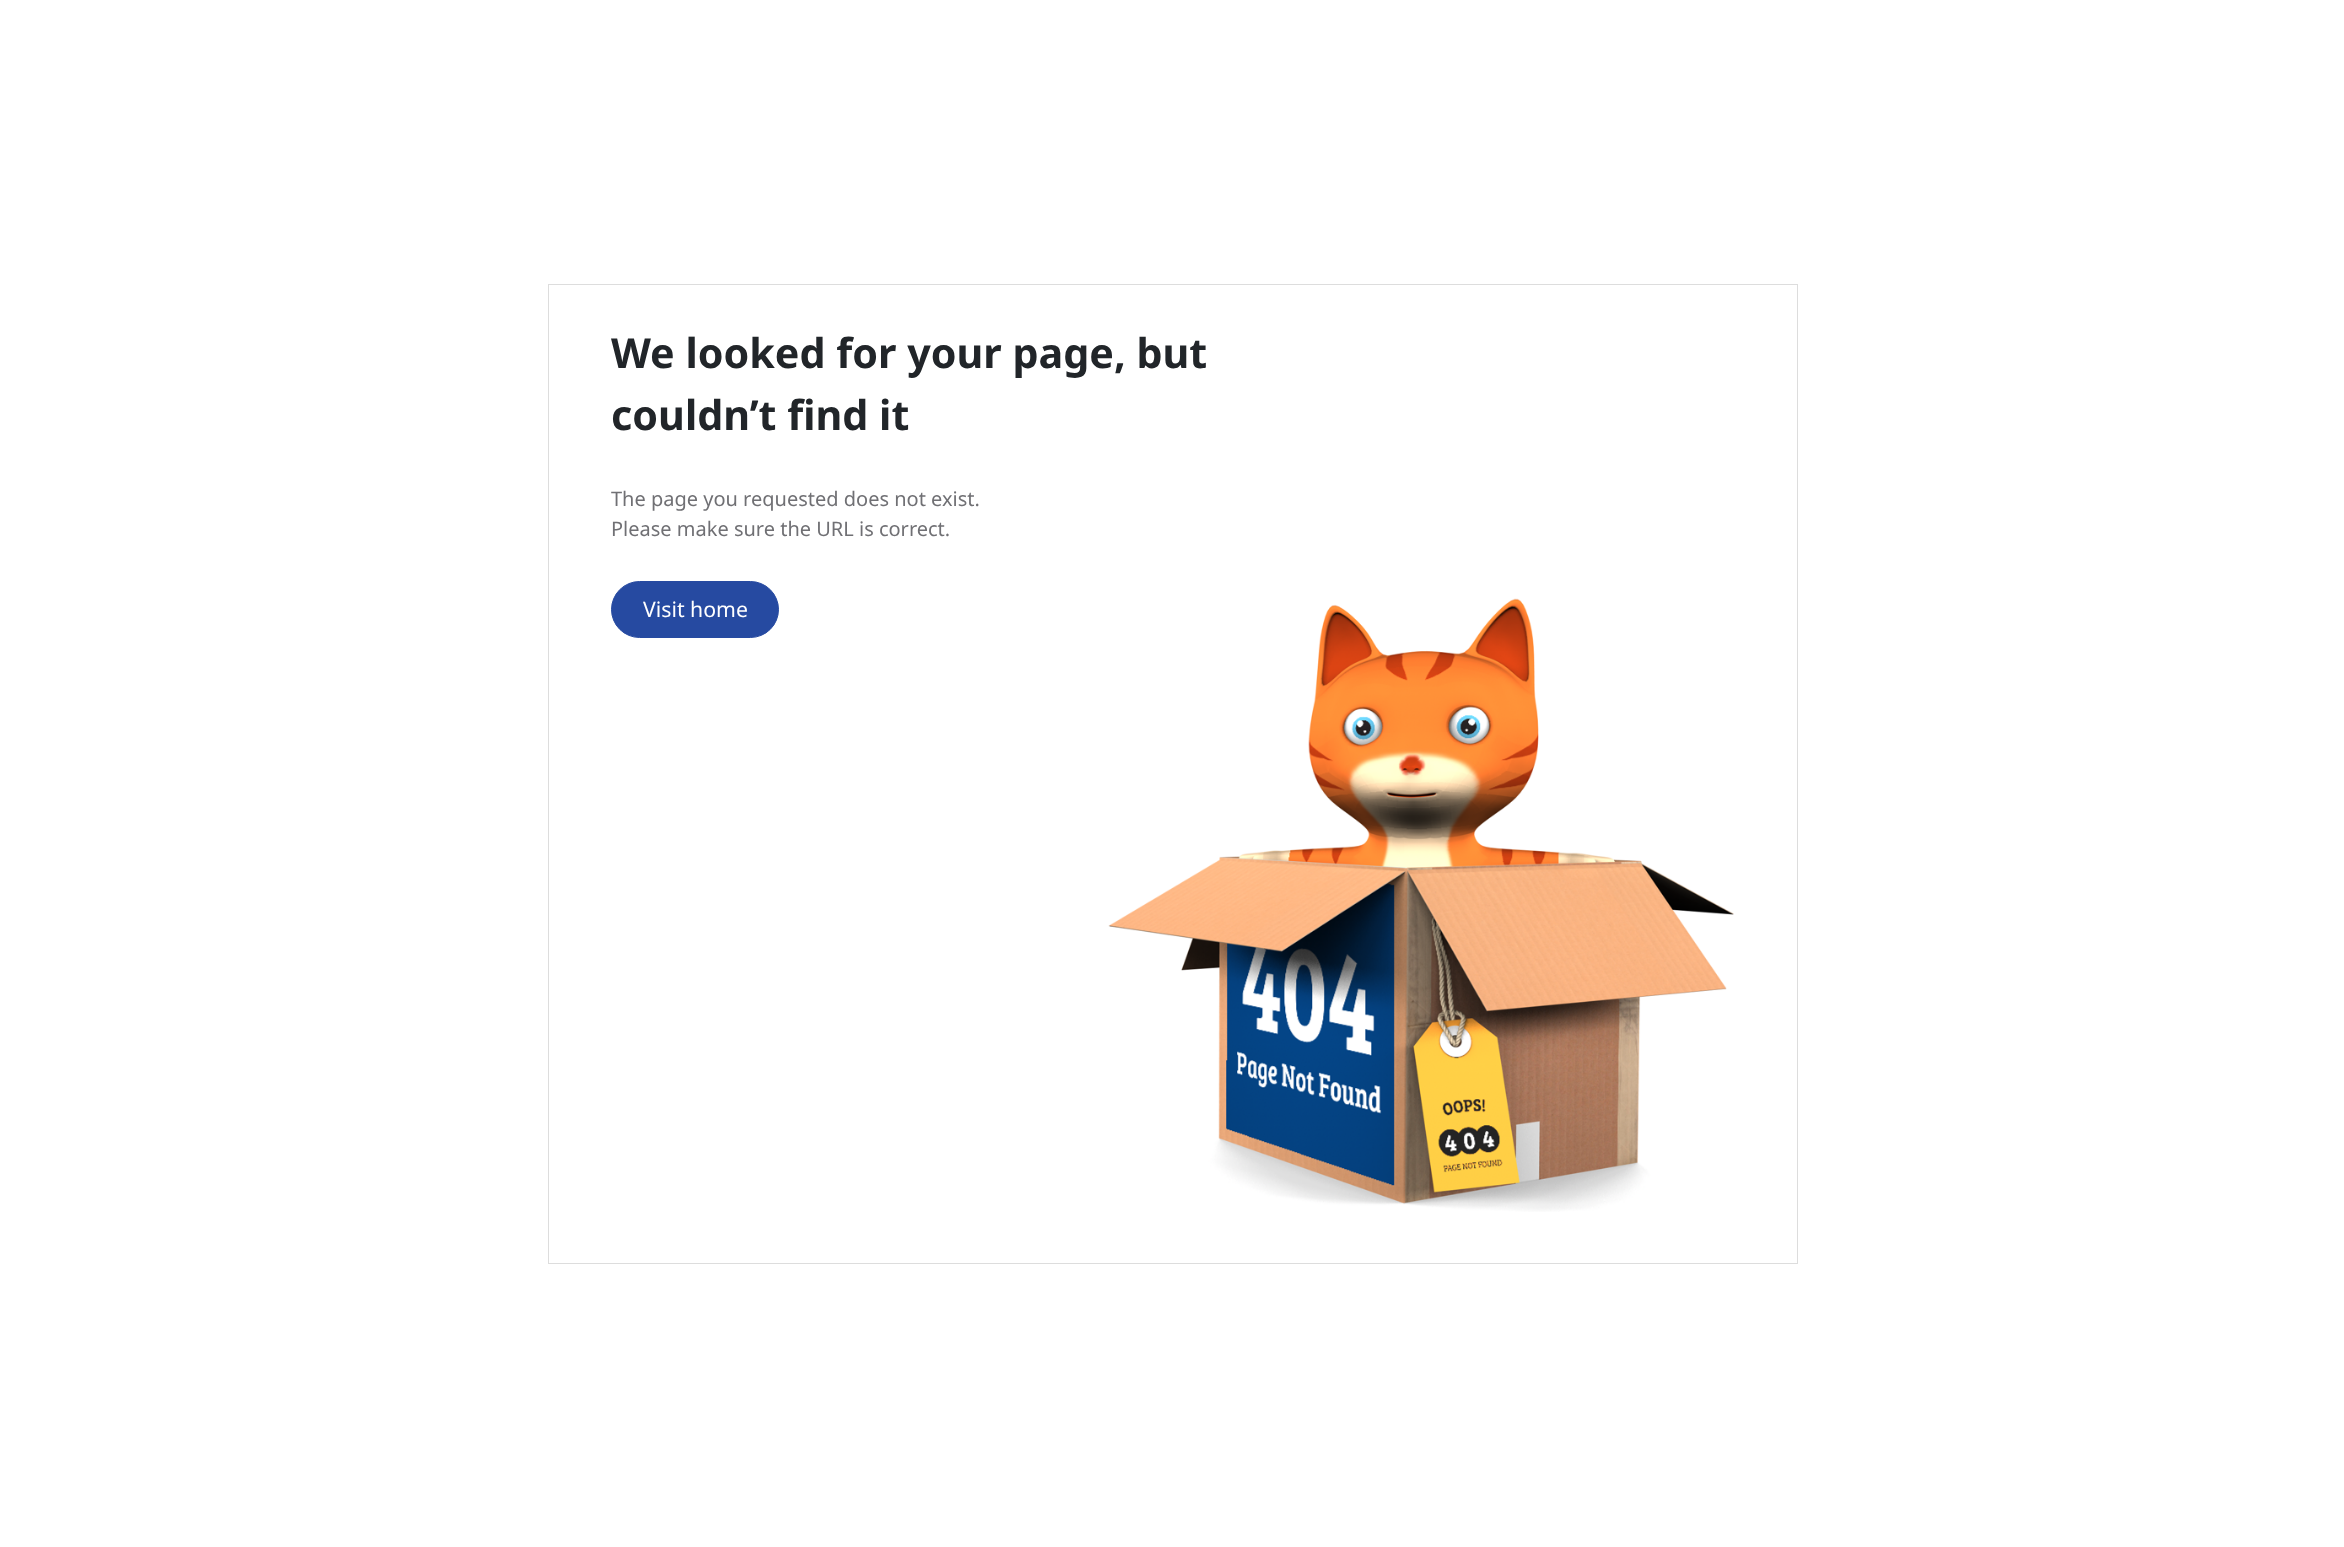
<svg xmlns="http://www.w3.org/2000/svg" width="2344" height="1547">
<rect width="100%" height="100%" fill="#fff"/>
<image x="1108" y="598" width="626" height="614" href="media/1.png"/>
<rect x="548.5" y="284.5" width="1249" height="979" fill="none" stroke="#ddd"/>
<text x="611" y="368" style="font-family:Noto Sans;font-size:41.25px;font-weight:bold;fill:#212529">We looked for your page, but</text>
<text x="611" y="430" style="font-family:Noto Sans;font-size:41.25px;font-weight:bold;fill:#212529">couldn’t find it</text>
<text x="611" y="506" style="font-family:Noto Sans;font-size:20px;fill:#707074">The page you requested does not exist.</text>
<text x="611" y="536" style="font-family:Noto Sans;font-size:20px;fill:#707074">Please make sure the URL is correct.</text>
<rect x="611.5" y="581.5" width="167" height="56" rx="28" fill="#264aa1" stroke="#264aa1"/>
<text x="643" y="617" style="font-family:Noto Sans;font-size:21.25px;fill:#fff">Visit home</text>
</svg>
